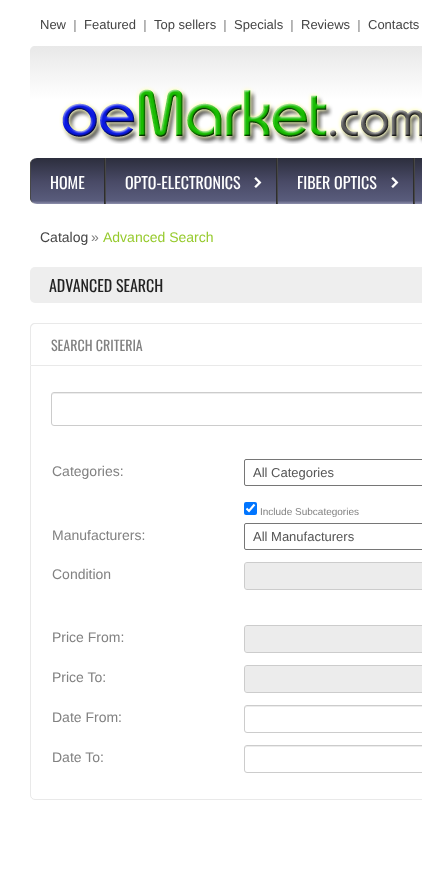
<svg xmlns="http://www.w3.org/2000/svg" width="422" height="892">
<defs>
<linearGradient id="g1" gradientUnits="userSpaceOnUse" x1="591" y1="46" x2="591" y2="158"><stop offset="0" stop-color="#e8e8e8"/><stop offset="0.48" stop-color="#fff"/></linearGradient>
<linearGradient id="g2" gradientUnits="userSpaceOnUse" x1="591" y1="158" x2="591" y2="204"><stop offset="0" stop-color="#2c2e3d"/><stop offset="0.51" stop-color="#494a66"/><stop offset="0.93" stop-color="#595c7c"/><stop offset="1" stop-color="#8e90ad"/></linearGradient>
</defs>
<rect width="100%" height="100%" fill="#fff"/>
<path d="M35 46h387c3 0 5 2 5 5v107h-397v-107c0-3 2-5 5-5z" fill="url(#g1)"/>
<text x="40" y="29" style="font-family:Liberation Sans;font-size:13px;fill:#444">New</text>
<image x="74" y="20" width="2" height="12" href="media/1.png"/>
<text x="84" y="29" style="font-family:Liberation Sans;font-size:13px;fill:#444">Featured</text>
<image x="144" y="20" width="2" height="12" href="media/1.png"/>
<text x="154" y="29" style="font-family:Liberation Sans;font-size:13px;fill:#444">Top sellers</text>
<image x="224" y="20" width="2" height="12" href="media/1.png"/>
<text x="234" y="29" style="font-family:Liberation Sans;font-size:13px;fill:#444">Specials</text>
<image x="291" y="20" width="2" height="12" href="media/1.png"/>
<text x="301" y="29" style="font-family:Liberation Sans;font-size:13px;fill:#444">Reviews</text>
<image x="358" y="20" width="2" height="12" href="media/1.png"/>
<text x="368" y="29" style="font-family:Liberation Sans;font-size:13px;fill:#444">Contacts</text>
<image x="59" y="86" width="363" height="58" href="media/2.png"/>
<rect x="30" y="158" width="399" height="46" rx="7" fill="url(#g2)"/>
<rect x="104" y="158" width="1" height="46" fill="#2e2e2e"/>
<path d="M30 198c0 3 3 6 6 6c-3 0-5-3-5-6v-34c0-3 2-6 5-6c-3 0-6 3-6 6z" fill="#474747"/>
<text x="50" y="189" style="font-family:Oswald;font-size:16px;fill:#fff">HOME</text>
<rect x="276" y="158" width="1" height="46" fill="#2e2e2e"/>
<rect x="105" y="158" width="1" height="46" fill="#474747"/>
<text x="125" y="189" style="font-family:Oswald;font-size:16px;fill:#fff">OPTO-ELECTRONICS</text>
<image x="254" y="177" width="8" height="11" href="media/3.png"/>
<rect x="413" y="158" width="1" height="46" fill="#2e2e2e"/>
<rect x="277" y="158" width="1" height="46" fill="#474747"/>
<text x="297" y="189" style="font-family:Oswald;font-size:16px;fill:#fff">FIBER OPTICS</text>
<image x="391" y="177" width="8" height="11" href="media/3.png"/>
<rect x="414" y="158" width="1" height="46" fill="#474747"/>
<text x="40" y="242" style="font-family:Liberation Sans;font-size:14px;fill:#444">Catalog</text>
<text x="91" y="242" style="font-family:Liberation Sans;font-size:14px;fill:#818181">»</text>
<text x="103" y="242" style="font-family:Liberation Sans;font-size:14px;fill:#96ca2d">Advanced Search</text>
<rect x="30" y="267" width="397" height="36" rx="5" fill="#eee"/>
<text x="49" y="292" style="font-family:Oswald;font-size:16px;fill:#222">ADVANCED SEARCH</text>
<path d="M35 323h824c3 0 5 2 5 5v37h-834v-37c0-3 2-5 5-5zm0 1h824c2 0 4 2 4 4v37h-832v-37c0-2 2-4 4-4z" fill="#e9e9e9" fill-rule="evenodd"/>
<text x="51" y="351" style="font-family:Oswald;font-size:14px;fill:#818181">SEARCH CRITERIA</text>
<path d="M30.5 365.5h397v429.5c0 2.5-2 4.5-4.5 4.5h-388c-2.5 0-4.5-2-4.5-4.5z" fill="none" stroke="#e9e9e9"/>
<path d="M54 394h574c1 0 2 1 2 2c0-1 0-3-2-3h-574c-2 0-2 2-2 3c0-1 1-2 2-2z" fill="#ececec"/>
<rect x="51.5" y="392.5" width="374" height="33" rx="2.5" fill="none" stroke="#ccc"/>
<text x="52" y="476" style="font-family:Liberation Sans;font-size:14px;fill:#818181">Categories:</text>
<rect x="244.5" y="459.5" width="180" height="26" rx="1.5" fill="none" stroke="#767676"/>
<text x="253" y="477" style="font-family:Liberation Sans;font-size:13px;fill:#555">All Categories</text>
<rect x="244" y="502" width="13" height="13" rx="2" fill="#0075ff"/>
<path d="M246.5 508.5l2.5 2.5l5.5-6.5" fill="none" stroke="#fff" stroke-width="2.1"/>
<text x="260" y="515" style="font-family:Liberation Sans;font-size:10px;fill:#818181">Include Subcategories</text>
<text x="52" y="540" style="font-family:Liberation Sans;font-size:14px;fill:#818181">Manufacturers:</text>
<rect x="244.5" y="523.5" width="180" height="26" rx="1.5" fill="none" stroke="#767676"/>
<text x="253" y="541" style="font-family:Liberation Sans;font-size:13px;fill:#555">All Manufacturers</text>
<text x="52" y="579" style="font-family:Liberation Sans;font-size:14px;fill:#818181">Condition</text>
<path d="M247 563c-1 0-2 1-2 2v22c0 1 1 2 2 2h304c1 0 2-1 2-2v-22c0-1-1-2-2-2z" fill="#ececec"/>
<rect x="244.5" y="562.5" width="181" height="27" rx="2.5" fill="none" stroke="#ccc"/>
<text x="52" y="642" style="font-family:Liberation Sans;font-size:14px;fill:#818181">Price From:</text>
<path d="M247 626c-1 0-2 1-2 2v22c0 1 1 2 2 2h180c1 0 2-1 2-2v-22c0-1-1-2-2-2z" fill="#ececec"/>
<rect x="244.5" y="625.5" width="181" height="27" rx="2.5" fill="none" stroke="#ccc"/>
<text x="52" y="682" style="font-family:Liberation Sans;font-size:14px;fill:#818181">Price To:</text>
<path d="M247 666c-1 0-2 1-2 2v22c0 1 1 2 2 2h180c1 0 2-1 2-2v-22c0-1-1-2-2-2z" fill="#ececec"/>
<rect x="244.5" y="665.5" width="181" height="27" rx="2.5" fill="none" stroke="#ccc"/>
<text x="52" y="722" style="font-family:Liberation Sans;font-size:14px;fill:#818181">Date From:</text>
<path d="M247 707h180c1 0 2 1 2 2v-1c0-1-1-2-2-2h-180c-1 0-2 1-2 2v1c0-1 1-2 2-2z" fill="#ececec"/>
<rect x="244.5" y="705.5" width="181" height="27" rx="2.5" fill="none" stroke="#ccc"/>
<text x="52" y="762" style="font-family:Liberation Sans;font-size:14px;fill:#818181">Date To:</text>
<path d="M247 747h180c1 0 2 1 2 2v-1c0-1-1-2-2-2h-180c-1 0-2 1-2 2v1c0-1 1-2 2-2z" fill="#ececec"/>
<rect x="244.5" y="745.5" width="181" height="27" rx="2.5" fill="none" stroke="#ccc"/>
</svg>
